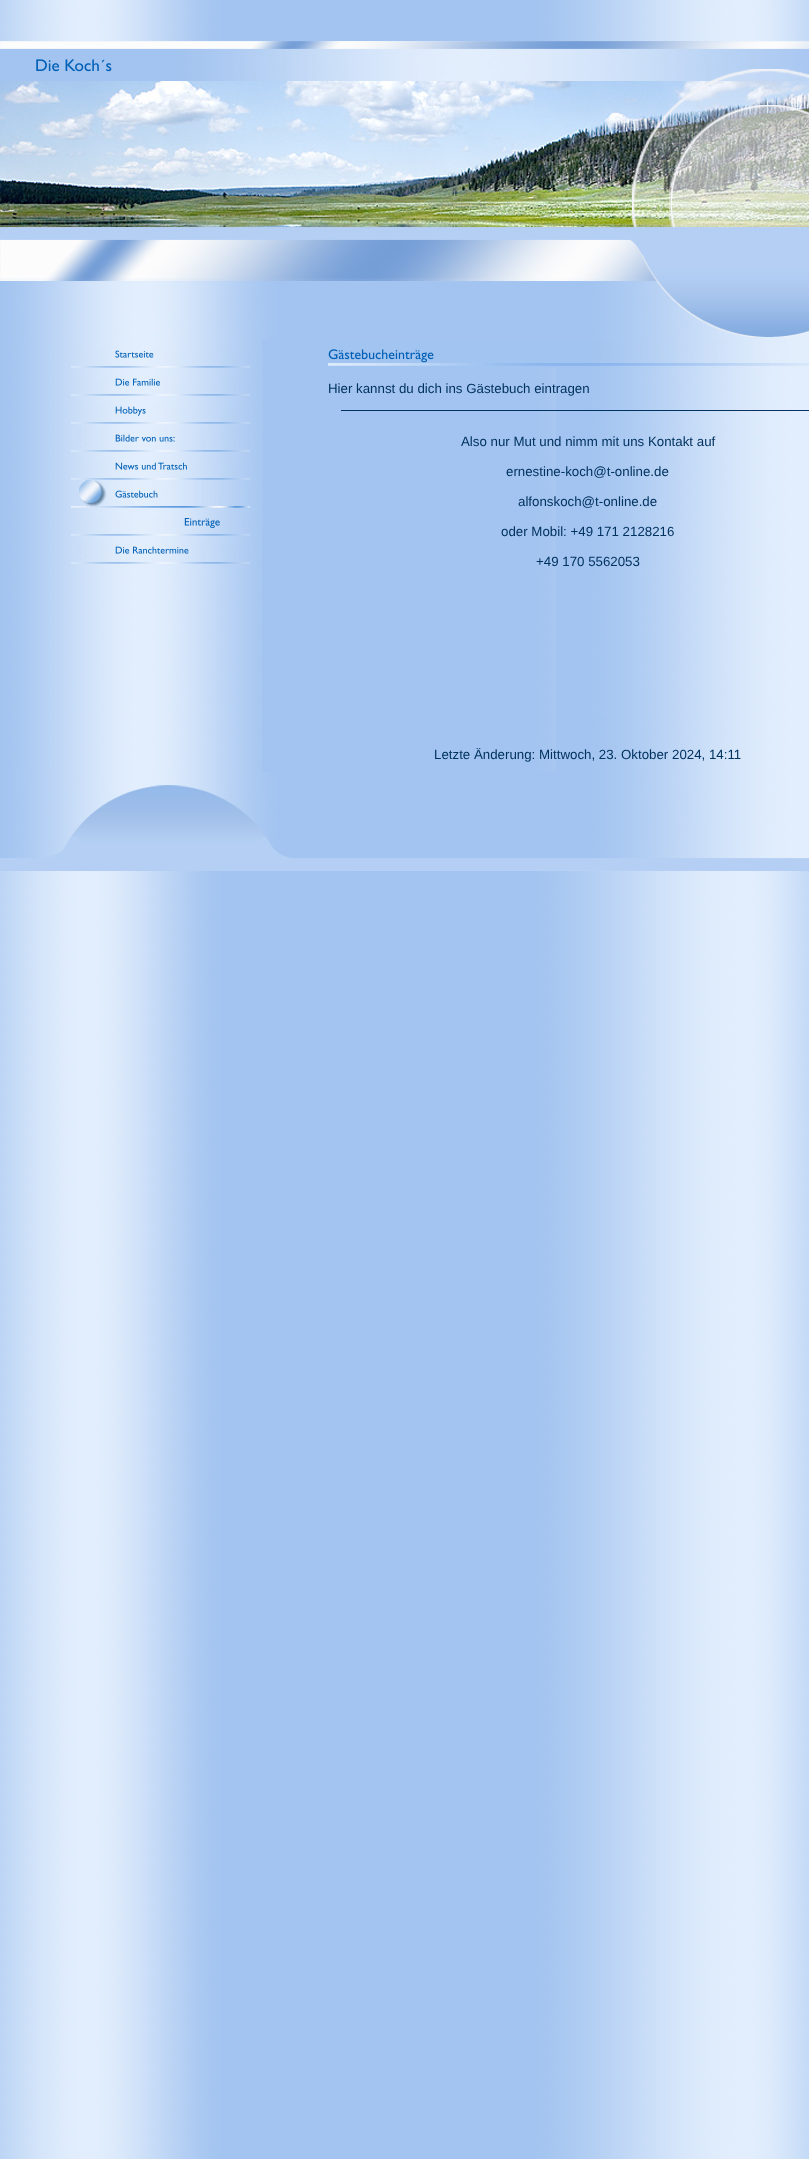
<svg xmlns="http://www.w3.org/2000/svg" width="809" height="2159">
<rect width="100%" height="100%" fill="#fff"/>
<image x="0" y="0" width="809" height="2159" href="media/1.png"/>
<image x="0" y="41" width="809" height="8" href="media/2.png"/>
<rect y="49" width="35" height="32" fill="#a3c4f1"/>
<image x="35" y="49" width="774" height="32" href="media/3.png"/>
<image x="0" y="81" width="809" height="146" href="media/4.png"/>
<image x="0" y="227" width="809" height="113" href="media/5.png"/>
<image x="0" y="340" width="65" height="432" href="media/6.png"/>
<image x="65" y="340" width="195" height="432" href="media/7.png"/>
<image x="71" y="350" width="179" height="18" href="media/8.png"/>
<image x="71" y="378" width="179" height="18" href="media/9.png"/>
<image x="71" y="406" width="179" height="18" href="media/10.png"/>
<image x="71" y="427" width="179" height="25" href="media/11.png"/>
<image x="71" y="462" width="179" height="18" href="media/12.png"/>
<image x="71" y="480" width="179" height="28" href="media/13.png"/>
<image x="71" y="518" width="179" height="18" href="media/14.png"/>
<image x="71" y="542" width="179" height="22" href="media/15.png"/>
<rect x="260" y="340" width="2" height="432" fill="#a8c8f1"/>
<rect x="262" y="349" width="1" height="184" fill="#a7c7f0"/>
<image x="556" y="368" width="253" height="404" href="media/16.png"/>
<image x="328" y="340" width="481" height="28" href="media/17.png"/>
<text x="328" y="393" style="font-family:Liberation Sans;font-size:13.3px;fill:#023360">Hier kannst du dich ins Gästebuch eintragen</text>
<rect x="341" y="410" width="468" height="1" fill="#023360"/>
<text x="461" y="446" style="font-family:Liberation Sans;font-size:13.3px;fill:#023360">Also nur Mut und nimm mit uns Kontakt auf</text>
<text x="506" y="476" style="font-family:Liberation Sans;font-size:13.3px;fill:#023360">ernestine-koch@t-online.de</text>
<text x="518" y="506" style="font-family:Liberation Sans;font-size:13.3px;fill:#023360">alfonskoch@t-online.de</text>
<text x="501" y="536" style="font-family:Liberation Sans;font-size:13.3px;fill:#023360">oder Mobil: +49 171 2128216</text>
<text x="536" y="566" style="font-family:Liberation Sans;font-size:13.3px;fill:#023360">+49 170 5562053</text>
<text x="434" y="759" style="font-family:Liberation Sans;font-size:13.3px;fill:#023360">Letzte Änderung: Mittwoch, 23. Oktober 2024, 14:11</text>
<image x="0" y="772" width="809" height="99" href="media/18.png"/>
</svg>
